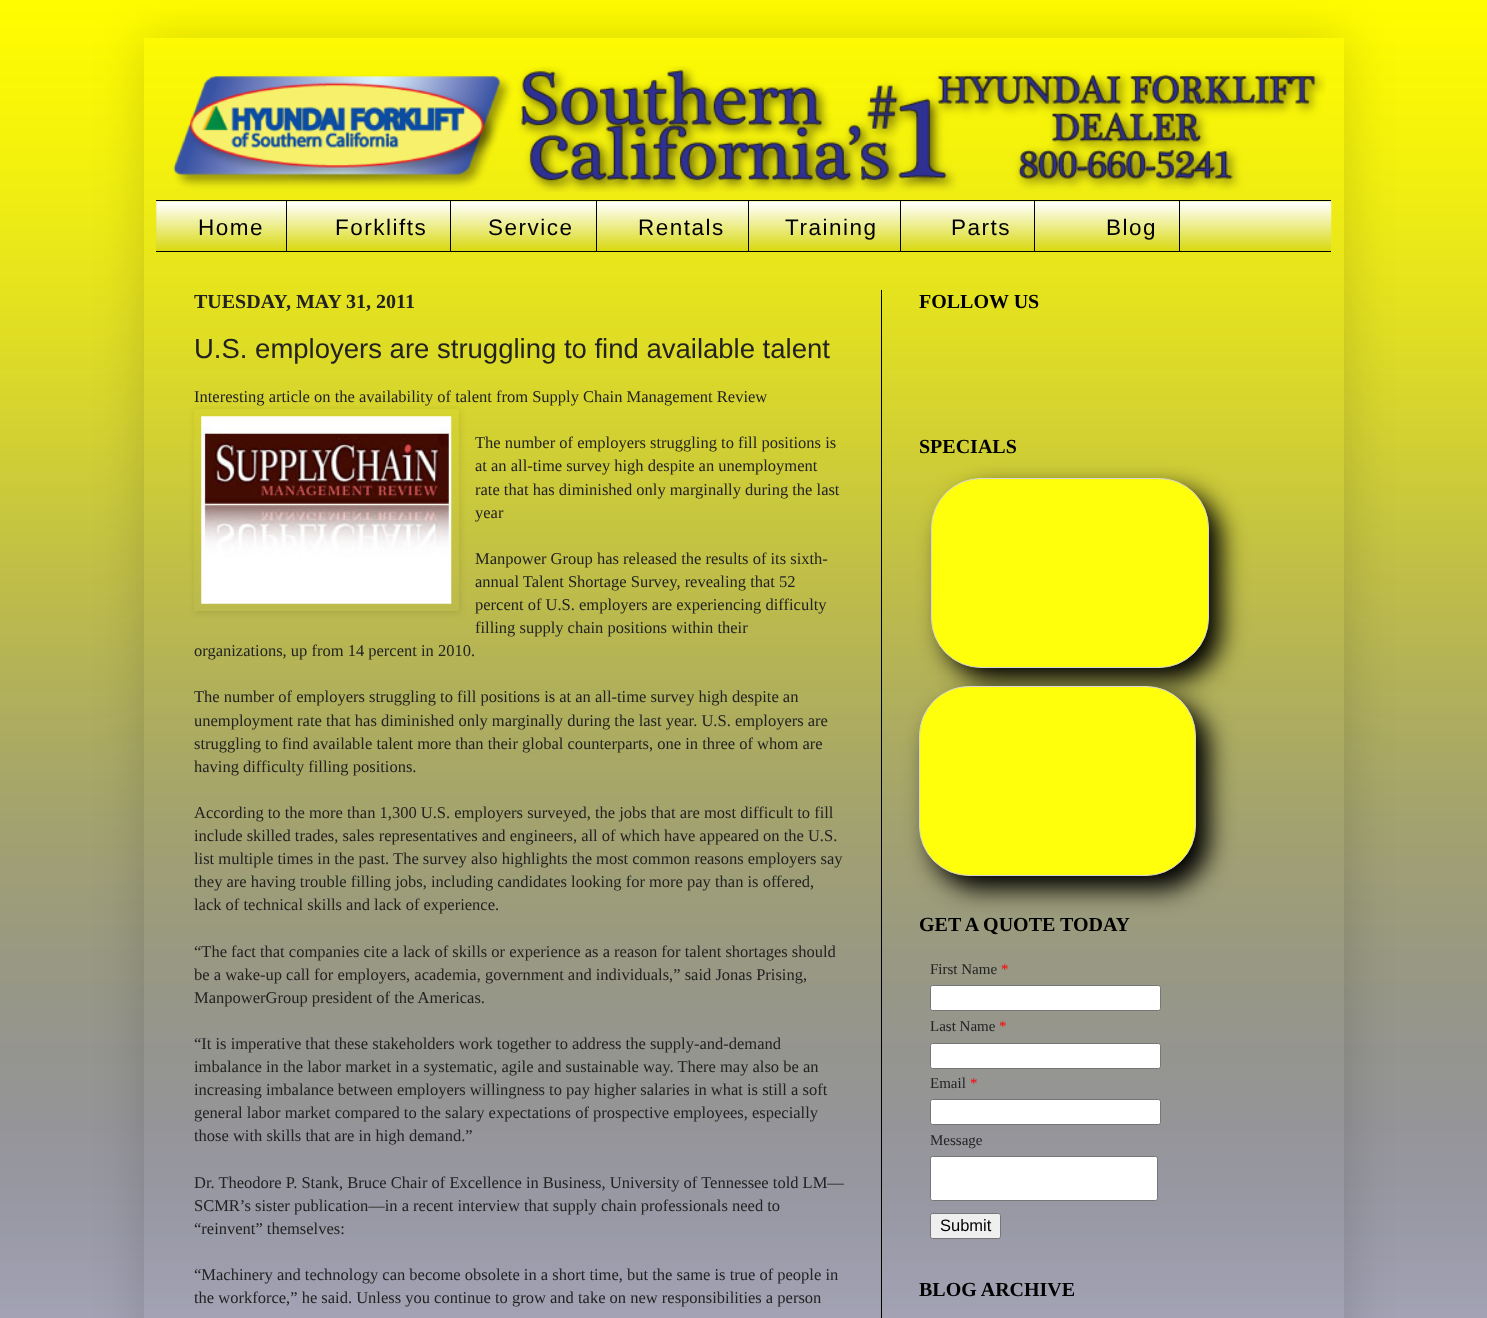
<svg xmlns="http://www.w3.org/2000/svg" width="1487" height="1318">
<defs>
<clipPath id="clip1"><path d="M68 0h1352v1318h-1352zm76 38h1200v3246h-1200z" clip-rule="evenodd"/></clipPath>
<clipPath id="clip2"><path d="M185 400h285v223h-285zm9 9h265v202h-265z" clip-rule="evenodd"/></clipPath>
</defs>
<rect width="100%" height="100%" fill="#fff"/>
<image x="0" y="0" width="1487" height="1318" href="media/1.png"/>
<g clip-path="url(#clip1)">
<rect x="144" y="38" width="1200" height="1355" fill="#00000026" filter="blur(25px)"/>
</g>
<image x="173" y="66" width="1153" height="126" href="media/2.png"/>
<rect x="156" y="201" width="1175" height="50" fill="#dada15"/>
<image x="156" y="201" width="1176" height="48" href="media/3.png"/>
<rect x="156" y="200" width="1175" height="1" fill="#000"/>
<rect x="156" y="251" width="1175" height="1" fill="#000"/>
<rect x="286" y="201" width="1" height="50" fill="#000"/>
<text x="198" y="235" style="font-family:Liberation Sans;font-size:22.5px;letter-spacing:1.5px;fill:#000">Home</text>
<rect x="450" y="201" width="1" height="50" fill="#000"/>
<text x="335" y="235" style="font-family:Liberation Sans;font-size:22.5px;letter-spacing:1.5px;fill:#000">Forklifts</text>
<rect x="596" y="201" width="1" height="50" fill="#000"/>
<text x="488" y="235" style="font-family:Liberation Sans;font-size:22.5px;letter-spacing:1.5px;fill:#000">Service</text>
<rect x="748" y="201" width="1" height="50" fill="#000"/>
<text x="638" y="235" style="font-family:Liberation Sans;font-size:22.5px;letter-spacing:1.5px;fill:#000">Rentals</text>
<rect x="900" y="201" width="1" height="50" fill="#000"/>
<text x="785" y="235" style="font-family:Liberation Sans;font-size:22.5px;letter-spacing:1.5px;fill:#000">Training</text>
<rect x="1034" y="201" width="1" height="50" fill="#000"/>
<text x="951" y="235" style="font-family:Liberation Sans;font-size:22.5px;letter-spacing:1.5px;fill:#000">Parts</text>
<rect x="1179" y="201" width="1" height="50" fill="#000"/>
<text x="1106" y="235" style="font-family:Liberation Sans;font-size:22.5px;letter-spacing:1.5px;fill:#000">Blog</text>
<rect x="881" y="290" width="1" height="1028" fill="#000"/>
<text x="194" y="308" style="font-family:Liberation Serif;font-size:20px;font-weight:bold;fill:#222">TUESDAY, MAY 31, 2011</text>
<text x="194" y="358" style="font-family:Liberation Sans;font-size:27.5px;fill:#222">U.S. employers are struggling to find available talent</text>
<text x="194" y="402" style="font-family:Liberation Serif;font-size:16.5px;fill:#222">Interesting article on the availability of talent from Supply Chain Management Review</text>
<g clip-path="url(#clip2)">
<rect x="195" y="410" width="265" height="203" fill="#0000001a" filter="blur(3px)"/>
</g>
<image x="201" y="416" width="251" height="188" href="media/4.png"/>
<text x="475" y="448" style="font-family:Liberation Serif;font-size:16.5px;fill:#222">The number of employers struggling to fill positions is</text>
<text x="475" y="471" style="font-family:Liberation Serif;font-size:16.5px;fill:#222">at an all-time survey high despite an unemployment</text>
<text x="475" y="495" style="font-family:Liberation Serif;font-size:16.5px;fill:#222">rate that has diminished only marginally during the last</text>
<text x="475" y="518" style="font-family:Liberation Serif;font-size:16.5px;fill:#222">year</text>
<text x="475" y="564" style="font-family:Liberation Serif;font-size:16.5px;fill:#222">Manpower Group has released the results of its sixth-</text>
<text x="475" y="587" style="font-family:Liberation Serif;font-size:16.5px;fill:#222">annual Talent Shortage Survey, revealing that 52</text>
<text x="475" y="610" style="font-family:Liberation Serif;font-size:16.5px;fill:#222">percent of U.S. employers are experiencing difficulty</text>
<text x="475" y="633" style="font-family:Liberation Serif;font-size:16.5px;fill:#222">filling supply chain positions within their</text>
<text x="194" y="656" style="font-family:Liberation Serif;font-size:16.5px;fill:#222">organizations, up from 14 percent in 2010.</text>
<text x="194" y="702" style="font-family:Liberation Serif;font-size:16.5px;fill:#222">The number of employers struggling to fill positions is at an all-time survey high despite an</text>
<text x="194" y="726" style="font-family:Liberation Serif;font-size:16.5px;fill:#222">unemployment rate that has diminished only marginally during the last year. U.S. employers are</text>
<text x="194" y="749" style="font-family:Liberation Serif;font-size:16.5px;fill:#222">struggling to find available talent more than their global counterparts, one in three of whom are</text>
<text x="194" y="772" style="font-family:Liberation Serif;font-size:16.5px;fill:#222">having difficulty filling positions.</text>
<text x="194" y="818" style="font-family:Liberation Serif;font-size:16.5px;fill:#222">According to the more than 1,300 U.S. employers surveyed, the jobs that are most difficult to fill</text>
<text x="194" y="841" style="font-family:Liberation Serif;font-size:16.5px;fill:#222">include skilled trades, sales representatives and engineers, all of which have appeared on the U.S.</text>
<text x="194" y="864" style="font-family:Liberation Serif;font-size:16.5px;fill:#222">list multiple times in the past. The survey also highlights the most common reasons employers say</text>
<text x="194" y="887" style="font-family:Liberation Serif;font-size:16.5px;fill:#222">they are having trouble filling jobs, including candidates looking for more pay than is offered,</text>
<text x="194" y="910" style="font-family:Liberation Serif;font-size:16.5px;fill:#222">lack of technical skills and lack of experience.</text>
<text x="194" y="957" style="font-family:Liberation Serif;font-size:16.5px;fill:#222">“The fact that companies cite a lack of skills or experience as a reason for talent shortages should</text>
<text x="194" y="980" style="font-family:Liberation Serif;font-size:16.5px;fill:#222">be a wake-up call for employers, academia, government and individuals,” said Jonas Prising,</text>
<text x="194" y="1003" style="font-family:Liberation Serif;font-size:16.5px;fill:#222">ManpowerGroup president of the Americas.</text>
<text x="194" y="1049" style="font-family:Liberation Serif;font-size:16.5px;fill:#222">“It is imperative that these stakeholders work together to address the supply-and-demand</text>
<text x="194" y="1072" style="font-family:Liberation Serif;font-size:16.5px;fill:#222">imbalance in the labor market in a systematic, agile and sustainable way. There may also be an</text>
<text x="194" y="1095" style="font-family:Liberation Serif;font-size:16.5px;fill:#222">increasing imbalance between employers willingness to pay higher salaries in what is still a soft</text>
<text x="194" y="1118" style="font-family:Liberation Serif;font-size:16.5px;fill:#222">general labor market compared to the salary expectations of prospective employees, especially</text>
<text x="194" y="1141" style="font-family:Liberation Serif;font-size:16.5px;fill:#222">those with skills that are in high demand.”</text>
<text x="194" y="1188" style="font-family:Liberation Serif;font-size:16.5px;fill:#222">Dr. Theodore P. Stank, Bruce Chair of Excellence in Business, University of Tennessee told LM—</text>
<text x="194" y="1211" style="font-family:Liberation Serif;font-size:16.5px;fill:#222">SCMR’s sister publication—in a recent interview that supply chain professionals need to</text>
<text x="194" y="1234" style="font-family:Liberation Serif;font-size:16.5px;fill:#222">“reinvent” themselves:</text>
<text x="194" y="1280" style="font-family:Liberation Serif;font-size:16.5px;fill:#222">“Machinery and technology can become obsolete in a short time, but the same is true of people in</text>
<text x="194" y="1303" style="font-family:Liberation Serif;font-size:16.5px;fill:#222">the workforce,” he said. Unless you continue to grow and take on new responsibilities a person</text>
<text x="919" y="308" style="font-family:Liberation Serif;font-size:20px;font-weight:bold;fill:#000">FOLLOW US</text>
<rect x="944" y="490" width="277" height="190" rx="50" fill="#000" filter="blur(12.5px)"/>
<text x="919" y="453" style="font-family:Liberation Serif;font-size:20px;font-weight:bold;fill:#000">SPECIALS</text>
<rect x="931.5" y="478.5" width="277" height="189" rx="49.5" fill="#ffff0b" stroke="#d7d7d7"/>
<rect x="931" y="699" width="278" height="190" rx="50" fill="#000" filter="blur(12.5px)"/>
<rect x="919.5" y="686.5" width="276" height="189" rx="49.5" fill="#ffff0b" stroke="#d7d7d7"/>
<text x="919" y="931" style="font-family:Liberation Serif;font-size:20px;font-weight:bold;fill:#000">GET A QUOTE TODAY</text>
<text x="930" y="974" style="font-family:Liberation Serif;font-size:15px;fill:#222">First Name</text>
<text x="1001" y="974" style="font-family:Liberation Serif;font-size:15px;fill:#f00">*</text>
<rect x="930.5" y="985.5" width="230" height="25" rx="2" fill="#fff" stroke="#767676"/>
<text x="930" y="1031" style="font-family:Liberation Serif;font-size:15px;fill:#222">Last Name</text>
<text x="999" y="1031" style="font-family:Liberation Serif;font-size:15px;fill:#f00">*</text>
<rect x="930.5" y="1043.5" width="230" height="25" rx="2" fill="#fff" stroke="#767676"/>
<text x="930" y="1088" style="font-family:Liberation Serif;font-size:15px;fill:#222">Email</text>
<text x="970" y="1088" style="font-family:Liberation Serif;font-size:15px;fill:#f00">*</text>
<rect x="930.5" y="1099.5" width="230" height="25" rx="2" fill="#fff" stroke="#767676"/>
<text x="930" y="1145" style="font-family:Liberation Serif;font-size:15px;fill:#222">Message</text>
<rect x="930.5" y="1156.5" width="227" height="44" rx="2" fill="#fff" stroke="#767676"/>
<rect x="930.5" y="1213.5" width="70" height="25" rx="2" fill="#efefef" stroke="#767676"/>
<text x="940" y="1231" style="font-family:Liberation Sans;font-size:16.5px;fill:#000">Submit</text>
<text x="919" y="1296" style="font-family:Liberation Serif;font-size:20px;font-weight:bold;fill:#000">BLOG ARCHIVE</text>
</svg>
